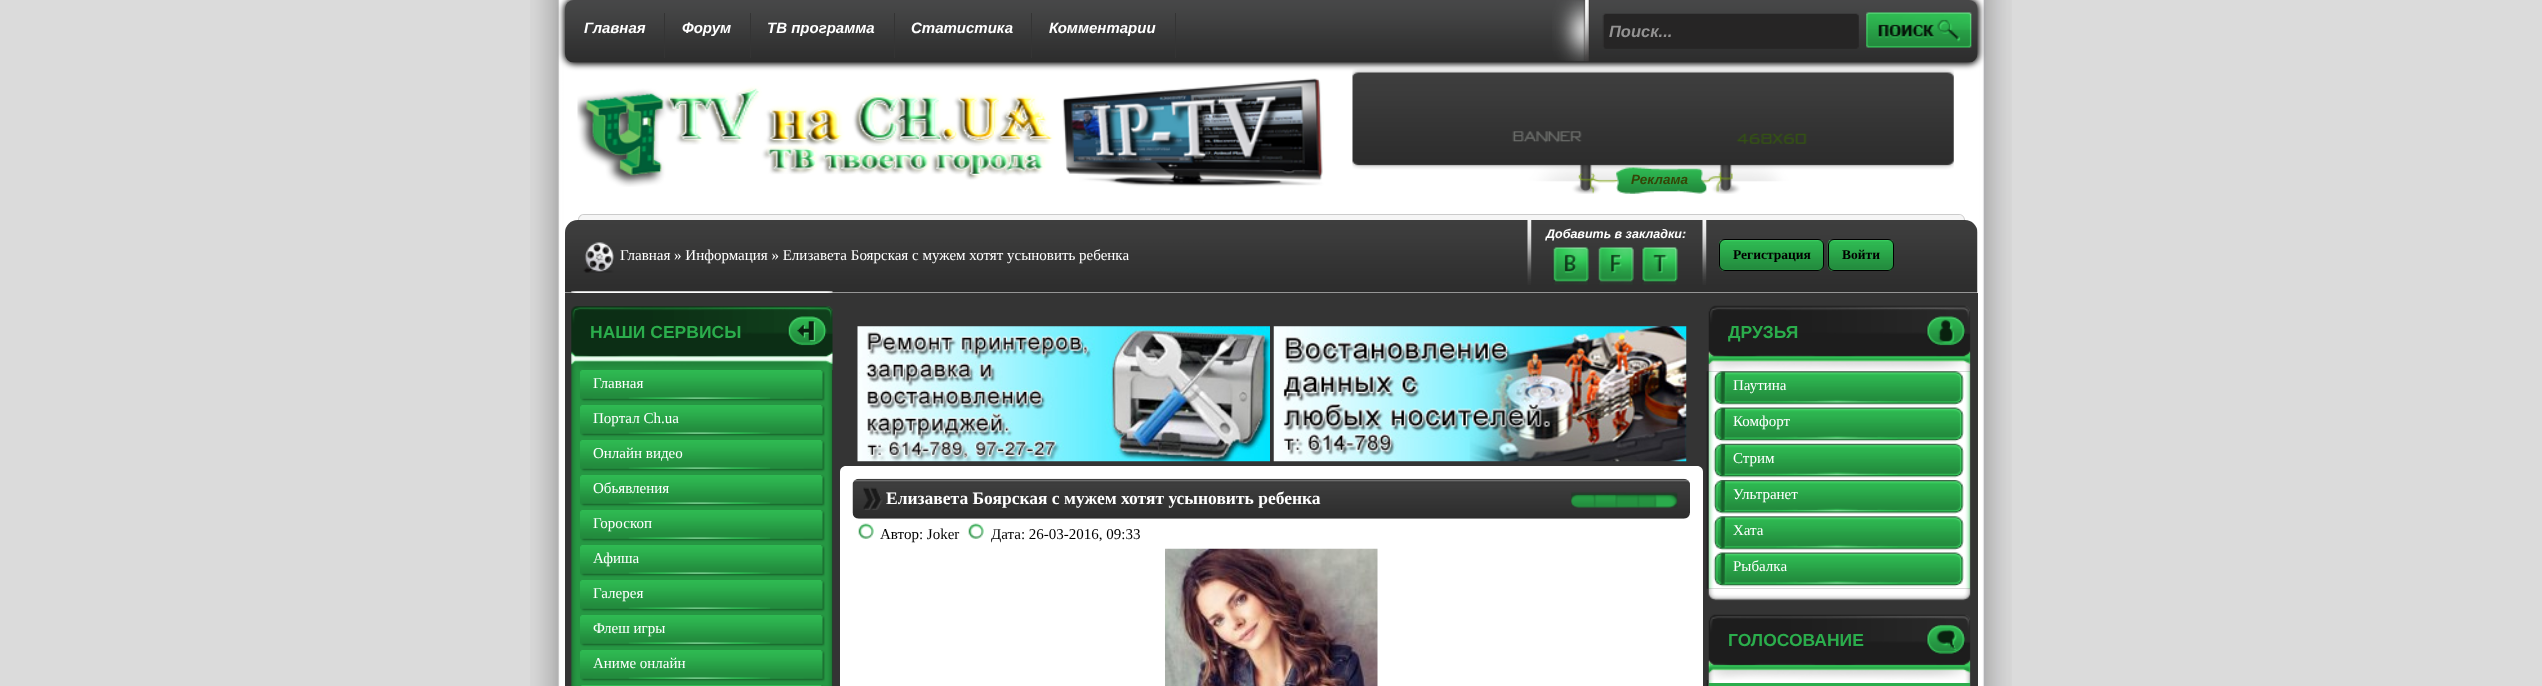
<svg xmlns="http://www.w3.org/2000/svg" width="2542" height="686">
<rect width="100%" height="100%" fill="#dbdbdb"/>
<image x="530" y="0" width="1482" height="686" href="media/1.png"/>
<rect x="564" y="-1" width="1415" height="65" rx="10" fill="#000" filter="blur(3px)"/>
<image x="565" y="0" width="1413" height="63" href="media/2.png"/>
<rect x="664" y="13" width="1" height="45" fill="#343434"/>
<text x="584" y="33" style="font-family:Liberation Sans;font-size:15px;font-weight:bold;font-style:italic;fill:#fff">Главная</text>
<rect x="750" y="13" width="1" height="45" fill="#343434"/>
<text x="682" y="33" style="font-family:Liberation Sans;font-size:15px;font-weight:bold;font-style:italic;fill:#fff">Форум</text>
<rect x="894" y="13" width="1" height="45" fill="#343434"/>
<text x="767" y="33" style="font-family:Liberation Sans;font-size:15px;font-weight:bold;font-style:italic;fill:#fff">ТВ программа</text>
<rect x="1031" y="13" width="1" height="45" fill="#343434"/>
<text x="911" y="33" style="font-family:Liberation Sans;font-size:15px;font-weight:bold;font-style:italic;fill:#fff">Статистика</text>
<rect x="1175" y="13" width="1" height="45" fill="#343434"/>
<text x="1049" y="33" style="font-family:Liberation Sans;font-size:15px;font-weight:bold;font-style:italic;fill:#fff">Комментарии</text>
<image x="1552" y="0" width="38" height="62" href="media/3.png"/>
<image x="1602" y="13" width="257" height="36" href="media/4.png"/>
<text x="1609" y="37" style="font-family:Liberation Sans;font-size:16.5px;font-weight:bold;font-style:italic;fill:#939292">Поиск...</text>
<image x="1866" y="12" width="106" height="36" href="media/5.png"/>
<image x="577" y="78" width="747" height="109" href="media/6.png"/>
<image x="1352" y="68" width="602" height="126" href="media/7.png"/>
<image x="1616" y="167" width="91" height="27" href="media/8.png"/>
<text x="1631" y="184" style="font-family:Liberation Sans;font-size:13.5px;font-weight:bold;font-style:italic;fill:#354507">Реклама</text>
<path d="M584 214h1375c3.5 0 6 2.5 6 6h-1387c0-3.5 2.5-6 6-6z" fill="#f5f5f5"/>
<path d="M584 214h1375c3 0 6 3 6 6h-1387c0-3 2-6 6-6zm0 1h1375c3 0 5 2 5 5h-1385c0-3 2-5 5-5z" fill="#cbcbcb" fill-rule="evenodd"/>
<image x="565" y="220" width="1413" height="73" href="media/9.png"/>
<image x="583" y="242" width="31" height="31" href="media/10.png"/>
<text x="620" y="260" style="font-family:Liberation Serif;font-size:15px;fill:#fff">Главная » Информация » Елизавета Боярская с мужем хотят усыновить ребенка</text>
<image x="1527" y="220" width="5" height="65" href="media/11.png"/>
<text x="1546" y="238" style="font-family:Liberation Sans;font-size:12.5px;font-weight:bold;font-style:italic;fill:#fff">Добавить в закладки:</text>
<image x="1552" y="247" width="37" height="38" href="media/12.png"/>
<image x="1598" y="247" width="36" height="38" href="media/13.png"/>
<image x="1641" y="247" width="37" height="38" href="media/14.png"/>
<image x="1702" y="220" width="5" height="65" href="media/11.png"/>
<image x="1718" y="240" width="106" height="31" href="media/15.png"/>
<image x="1827" y="240" width="67" height="31" href="media/16.png"/>
<rect x="1719.5" y="239.5" width="104" height="31" rx="5.5" fill="none" stroke="#000"/>
<text x="1733" y="259" style="font-family:Liberation Serif;font-size:13.5px;font-weight:bold;fill:#000">Регистрация</text>
<rect x="1828.5" y="239.5" width="65" height="31" rx="5.5" fill="none" stroke="#000"/>
<text x="1842" y="259" style="font-family:Liberation Serif;font-size:13.5px;font-weight:bold;fill:#000">Войти</text>
<image x="571" y="291" width="262" height="2" href="media/17.png"/>
<rect x="565" y="293" width="1413" height="393" fill="#343434"/>
<image x="571" y="306" width="262" height="64" href="media/18.png"/>
<text x="590" y="338" style="font-family:Liberation Sans;font-size:17.5px;font-weight:bold;fill:#2bad4c">НАШИ СЕРВИСЫ</text>
<image x="787" y="315" width="40" height="31" href="media/19.png"/>
<image x="571" y="370" width="262" height="316" href="media/20.png"/>
<image x="580" y="370" width="245" height="32" href="media/21.png"/>
<text x="593" y="388" style="font-family:Liberation Serif;font-size:15px;fill:#fff">Главная</text>
<image x="580" y="405" width="245" height="32" href="media/21.png"/>
<text x="593" y="423" style="font-family:Liberation Serif;font-size:15px;fill:#fff">Портал Ch.ua</text>
<image x="580" y="440" width="245" height="32" href="media/21.png"/>
<text x="593" y="458" style="font-family:Liberation Serif;font-size:15px;fill:#fff">Онлайн видео</text>
<image x="580" y="475" width="245" height="32" href="media/21.png"/>
<text x="593" y="493" style="font-family:Liberation Serif;font-size:15px;fill:#fff">Обьявления</text>
<image x="580" y="510" width="245" height="32" href="media/21.png"/>
<text x="593" y="528" style="font-family:Liberation Serif;font-size:15px;fill:#fff">Гороскоп</text>
<image x="580" y="545" width="245" height="32" href="media/21.png"/>
<text x="593" y="563" style="font-family:Liberation Serif;font-size:15px;fill:#fff">Афиша</text>
<image x="580" y="580" width="245" height="32" href="media/22.png"/>
<text x="593" y="598" style="font-family:Liberation Serif;font-size:15px;fill:#fff">Галерея</text>
<image x="580" y="615" width="245" height="32" href="media/21.png"/>
<text x="593" y="633" style="font-family:Liberation Serif;font-size:15px;fill:#fff">Флеш игры</text>
<image x="580" y="650" width="245" height="32" href="media/21.png"/>
<text x="593" y="668" style="font-family:Liberation Serif;font-size:15px;fill:#fff">Аниме онлайн</text>
<image x="581" y="685" width="242" height="1" href="media/23.png"/>
<image x="857" y="326" width="413" height="136" href="media/24.png"/>
<image x="1273" y="326" width="414" height="136" href="media/25.png"/>
<path d="M846 466h851c3.5 0 6 2.5 6 6v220h-863v-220c0-3.5 2.5-6 6-6z" fill="#fff"/>
<image x="852" y="478" width="838" height="41" href="media/26.png"/>
<image x="863" y="487" width="20" height="23" href="media/27.png"/>
<text x="886" y="504" style="font-family:Liberation Serif;font-size:17.5px;font-weight:bold;fill:#fff">Елизавета Боярская с мужем хотят усыновить ребенка</text>
<image x="1571" y="492" width="107" height="16" href="media/28.png"/>
<image x="1571" y="492" width="107" height="16" href="media/29.png"/>
<image x="858" y="523" width="16" height="16" href="media/30.png"/>
<text x="880" y="539" style="font-family:Liberation Serif;font-size:15px;fill:#000">Автор: Joker</text>
<image x="968" y="523" width="16" height="16" href="media/30.png"/>
<text x="991" y="539" style="font-family:Liberation Serif;font-size:15px;fill:#000">Дата: 26-03-2016, 09:33</text>
<image x="1165" y="548" width="213" height="138" href="media/31.png"/>
<image x="1708" y="305" width="263" height="67" href="media/32.png"/>
<text x="1728" y="338" style="font-family:Liberation Sans;font-size:17.5px;font-weight:bold;fill:#2bad4c">ДРУЗЬЯ</text>
<image x="1926" y="316" width="40" height="30" href="media/33.png"/>
<image x="1706" y="371" width="265" height="218" href="media/34.png"/>
<image x="1713" y="371" width="251" height="35" href="media/35.png"/>
<text x="1733" y="390" style="font-family:Liberation Serif;font-size:15px;fill:#fff">Паутина</text>
<image x="1713" y="407" width="251" height="35" href="media/36.png"/>
<text x="1733" y="426" style="font-family:Liberation Serif;font-size:15px;fill:#fff">Комфорт</text>
<image x="1713" y="443" width="251" height="35" href="media/37.png"/>
<text x="1733" y="463" style="font-family:Liberation Serif;font-size:15px;fill:#fff">Стрим</text>
<image x="1713" y="480" width="251" height="34" href="media/38.png"/>
<text x="1733" y="499" style="font-family:Liberation Serif;font-size:15px;fill:#fff">Ультранет</text>
<image x="1713" y="516" width="251" height="35" href="media/39.png"/>
<text x="1733" y="535" style="font-family:Liberation Serif;font-size:15px;fill:#fff">Хата</text>
<image x="1713" y="552" width="251" height="35" href="media/36.png"/>
<text x="1733" y="571" style="font-family:Liberation Serif;font-size:15px;fill:#fff">Рыбалка</text>
<image x="1708" y="588" width="263" height="13" href="media/40.png"/>
<image x="1708" y="614" width="263" height="66" href="media/41.png"/>
<text x="1728" y="646" style="font-family:Liberation Sans;font-size:17.5px;font-weight:bold;fill:#2bad4c">ГОЛОСОВАНИЕ</text>
<image x="1926" y="624" width="40" height="30" href="media/42.png"/>
<image x="1706" y="680" width="265" height="6" href="media/43.png"/>
<rect x="1709" y="683" width="261" height="3" fill="#2bad4c"/>
</svg>
